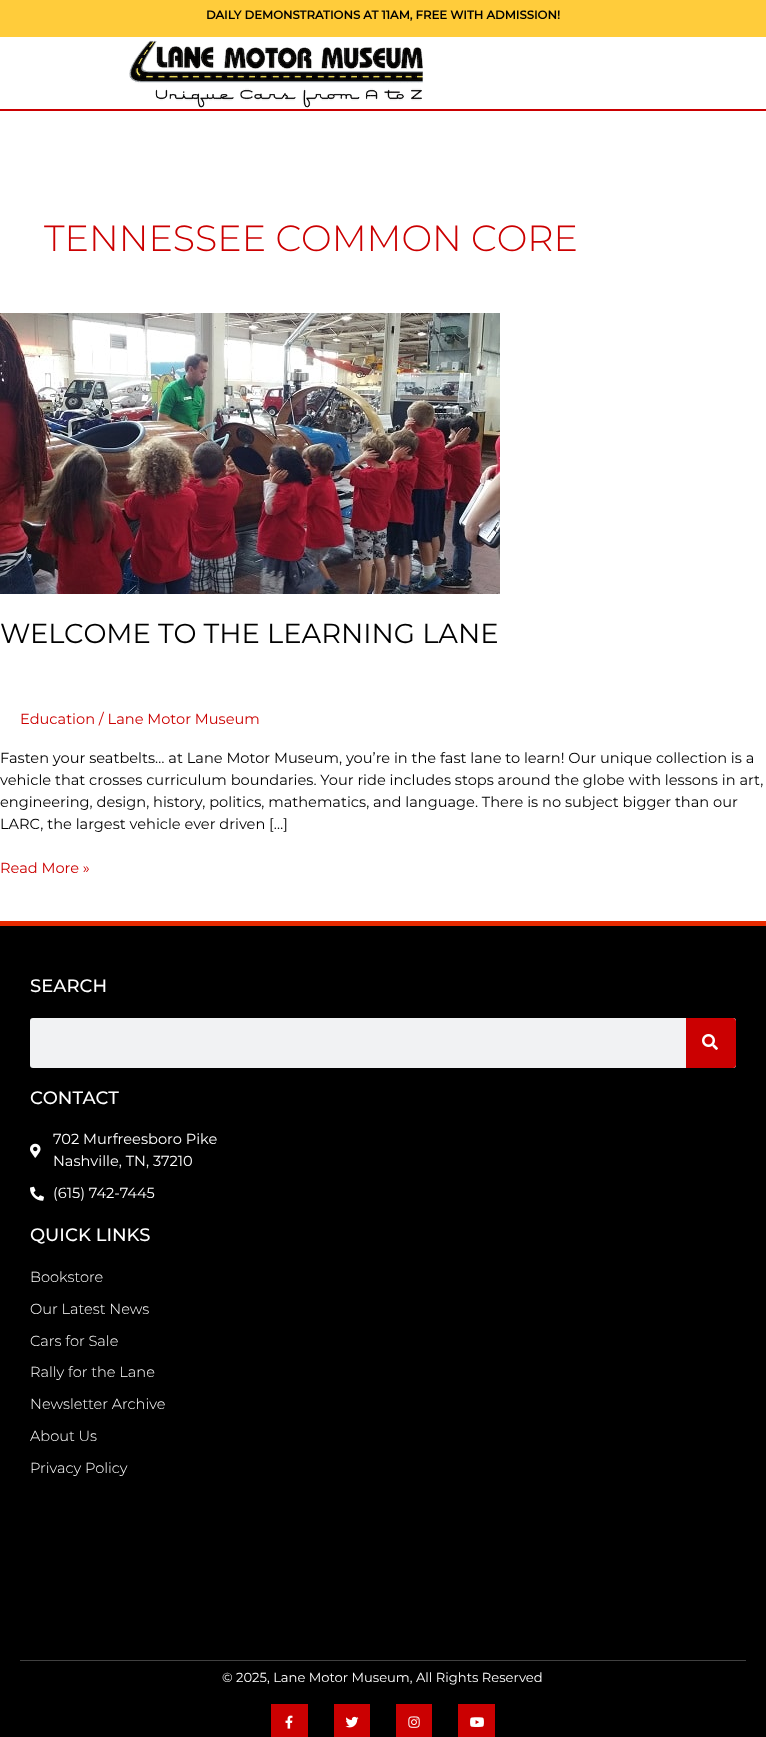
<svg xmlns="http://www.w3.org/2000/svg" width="766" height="1737">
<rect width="100%" height="100%" fill="#fff"/>
<rect width="766" height="37" fill="#ffcc3b"/>
<text x="206" y="19" style="font-family:Montserrat;font-size:11.7px;font-weight:bold;fill:#000">DAILY DEMONSTRATIONS AT 11AM, FREE WITH ADMISSION!</text>
<rect y="109" width="766" height="2" fill="#cb0001"/>
<image x="129" y="40" width="295" height="68" href="media/1.png"/>
<text x="44" y="251" style="font-family:Montserrat;font-size:36.5px;font-weight:300;fill:#cb0001">TENNESSEE COMMON CORE</text>
<image x="0" y="313" width="500" height="281" href="media/2.png"/>
<text x="0" y="643" style="font-family:Montserrat;font-size:27.4px;fill:#000">WELCOME TO THE LEARNING LANE</text>
<text x="20" y="724" style="font-family:Montserrat;font-size:14.6px;fill:#cb0001">Education / Lane Motor Museum</text>
<text x="0" y="763" style="font-family:Montserrat;font-size:14.6px;fill:#000">Fasten your seatbelts… at Lane Motor Museum, you’re in the fast lane to learn! Our unique collection is a</text>
<text x="0" y="785" style="font-family:Montserrat;font-size:14.6px;fill:#000">vehicle that crosses curriculum boundaries. Your ride includes stops around the globe with lessons in art,</text>
<text x="0" y="807" style="font-family:Montserrat;font-size:14.6px;fill:#000">engineering, design, history, politics, mathematics, and language. There is no subject bigger than our</text>
<text x="0" y="829" style="font-family:Montserrat;font-size:14.6px;fill:#000">LARC, the largest vehicle ever driven […]</text>
<text x="0" y="873" style="font-family:Montserrat;font-size:14.6px;fill:#cb0001">Read More »</text>
<rect y="926" width="766" height="811" fill="#000"/>
<rect y="921" width="766" height="5" fill="#e82a00"/>
<text x="30" y="992" style="font-family:Montserrat;font-size:18px;font-weight:500;fill:#fff">SEARCH</text>
<rect x="30" y="1018" width="706" height="50" rx="3" fill="#f1f2f3"/>
<path d="M686 1018h47c1.5 0 3 1.5 3 3v44c0 1.5-1.5 3-3 3h-47z" fill="#cb0001"/>
<image x="702" y="1034" width="16" height="16" href="media/3.png"/>
<text x="30" y="1104" style="font-family:Montserrat;font-size:18px;font-weight:500;fill:#fff">CONTACT</text>
<image x="30" y="1143" width="11" height="15" href="media/4.png"/>
<text x="53" y="1144" style="font-family:Montserrat;font-size:14.6px;fill:#fff">702 Murfreesboro Pike</text>
<text x="53" y="1166" style="font-family:Montserrat;font-size:14.6px;fill:#fff">Nashville, TN, 37210</text>
<image x="30" y="1186" width="14" height="15" href="media/5.png"/>
<text x="53" y="1198" style="font-family:Montserrat;font-size:14.6px;fill:#fff">(615) 742-7445</text>
<text x="30" y="1241" style="font-family:Montserrat;font-size:18px;font-weight:500;fill:#fff">QUICK LINKS</text>
<text x="30" y="1282" style="font-family:Montserrat;font-size:14.6px;font-weight:300;fill:#fff">Bookstore</text>
<text x="30" y="1314" style="font-family:Montserrat;font-size:14.6px;font-weight:300;fill:#fff">Our Latest News</text>
<text x="30" y="1346" style="font-family:Montserrat;font-size:14.6px;font-weight:300;fill:#fff">Cars for Sale</text>
<text x="30" y="1377" style="font-family:Montserrat;font-size:14.6px;font-weight:300;fill:#fff">Rally for the Lane</text>
<text x="30" y="1409" style="font-family:Montserrat;font-size:14.6px;font-weight:300;fill:#fff">Newsletter Archive</text>
<text x="30" y="1441" style="font-family:Montserrat;font-size:14.6px;font-weight:300;fill:#fff">About Us</text>
<text x="30" y="1473" style="font-family:Montserrat;font-size:14.6px;font-weight:300;fill:#fff">Privacy Policy</text>
<rect x="20" y="1660" width="726" height="1" fill="#404040"/>
<text x="222" y="1682" style="font-family:Montserrat;font-size:13.1px;fill:#fff">© 2025, Lane Motor Museum, All Rights Reserved</text>
<rect x="271" y="1704" width="37" height="33" fill="#cb0001"/>
<image x="285" y="1715" width="8" height="14" href="media/6.png"/>
<rect x="334" y="1704" width="36" height="33" fill="#cb0001"/>
<image x="345" y="1716" width="14" height="12" href="media/7.png"/>
<rect x="396" y="1704" width="36" height="33" fill="#cb0001"/>
<image x="408" y="1716" width="12" height="12" href="media/8.png"/>
<rect x="458" y="1704" width="37" height="33" fill="#cb0001"/>
<image x="470" y="1717" width="14" height="10" href="media/9.png"/>
</svg>
